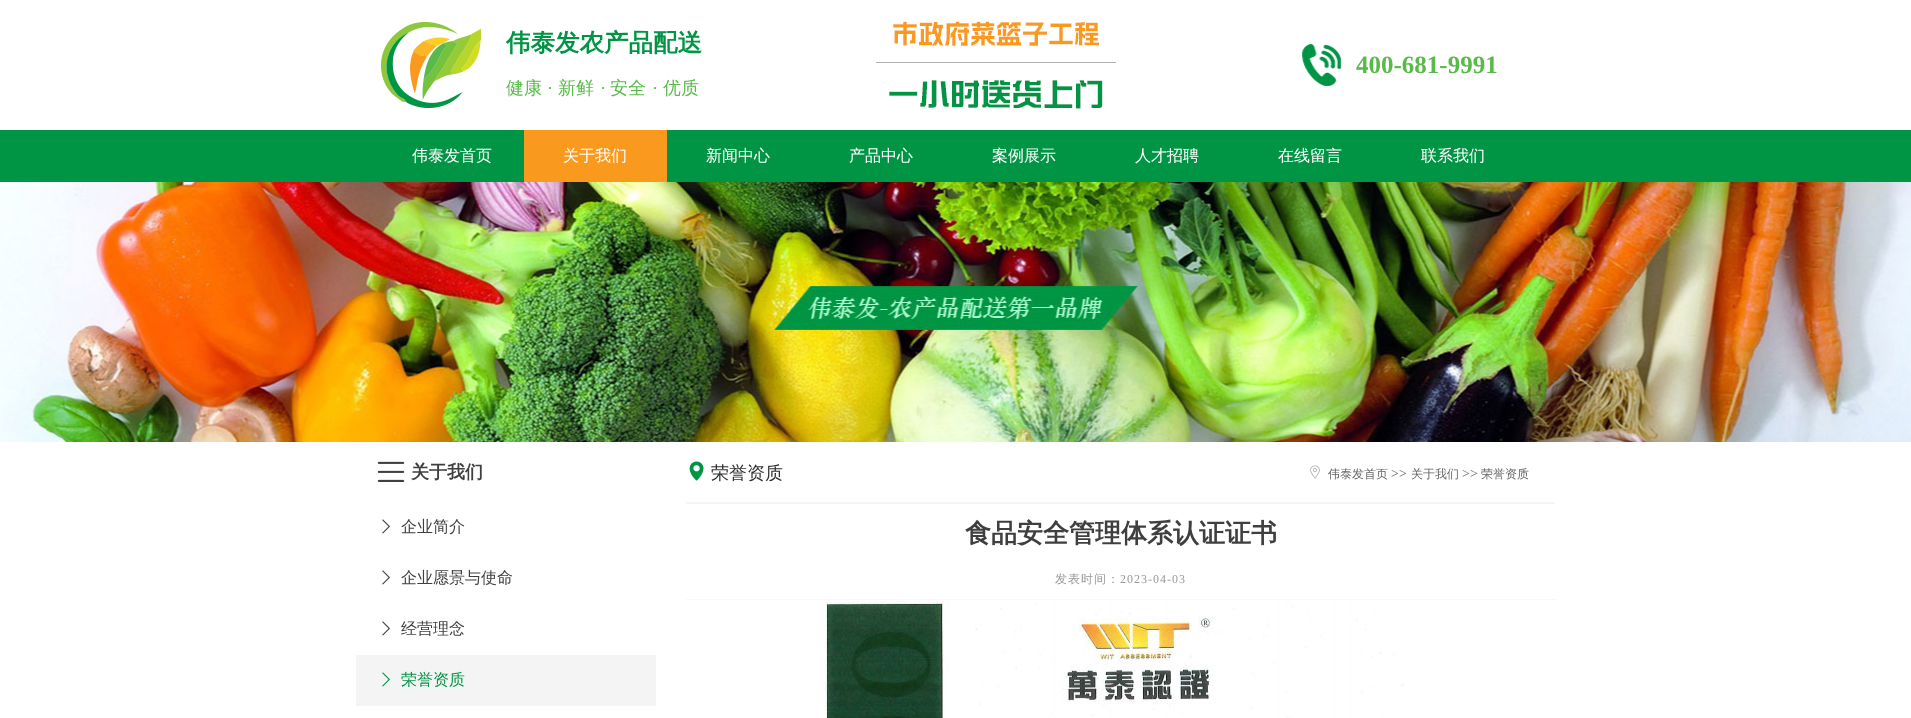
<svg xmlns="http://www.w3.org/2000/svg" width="1911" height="718">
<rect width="100%" height="100%" fill="#fff"/>
<image x="381" y="22" width="100" height="86" href="media/1.png"/>
<text x="506" y="51" style="font-family:WenQuanYi Zen Hei;font-size:24.5px;font-weight:bold;fill:#009544">伟泰发农产品配送</text>
<text x="506" y="94" style="font-family:WenQuanYi Zen Hei;font-size:18px;font-weight:500;fill:#59ba4a">健康</text>
<text x="547" y="94" style="font-family:Liberation Serif;font-size:18px;fill:#59ba4a">·</text>
<text x="558" y="94" style="font-family:WenQuanYi Zen Hei;font-size:18px;font-weight:500;fill:#59ba4a">新鲜</text>
<text x="600" y="94" style="font-family:Liberation Serif;font-size:18px;fill:#59ba4a">·</text>
<text x="610" y="94" style="font-family:WenQuanYi Zen Hei;font-size:18px;font-weight:500;fill:#59ba4a">安全</text>
<text x="652" y="94" style="font-family:Liberation Serif;font-size:18px;fill:#59ba4a">·</text>
<text x="663" y="94" style="font-family:WenQuanYi Zen Hei;font-size:18px;font-weight:500;fill:#59ba4a">优质</text>
<image x="876" y="21" width="240" height="88" href="media/2.png"/>
<image x="1302" y="44" width="39" height="42" href="media/3.png"/>
<text x="1356" y="73" style="font-family:Liberation Serif;font-size:25px;font-weight:bold;fill:#59ba4a">400-681-9991</text>
<rect y="130" width="1911" height="52" fill="#009544"/>
<text x="412" y="161" style="font-family:WenQuanYi Zen Hei;font-size:16px;font-weight:500;fill:#fff">伟泰发首页</text>
<rect x="524" y="130" width="143" height="52" fill="#f9991d"/>
<text x="563" y="161" style="font-family:WenQuanYi Zen Hei;font-size:16px;font-weight:500;fill:#fff">关于我们</text>
<text x="706" y="161" style="font-family:WenQuanYi Zen Hei;font-size:16px;font-weight:500;fill:#fff">新闻中心</text>
<text x="849" y="161" style="font-family:WenQuanYi Zen Hei;font-size:16px;font-weight:500;fill:#fff">产品中心</text>
<text x="992" y="161" style="font-family:WenQuanYi Zen Hei;font-size:16px;font-weight:500;fill:#fff">案例展示</text>
<text x="1135" y="161" style="font-family:WenQuanYi Zen Hei;font-size:16px;font-weight:500;fill:#fff">人才招聘</text>
<text x="1278" y="161" style="font-family:WenQuanYi Zen Hei;font-size:16px;font-weight:500;fill:#fff">在线留言</text>
<text x="1421" y="161" style="font-family:WenQuanYi Zen Hei;font-size:16px;font-weight:500;fill:#fff">联系我们</text>
<image x="0" y="182" width="1911" height="260" href="media/4.png"/>
<image x="377" y="461" width="28" height="21" href="media/5.png"/>
<text x="411" y="478" style="font-family:WenQuanYi Zen Hei;font-size:18px;font-weight:bold;fill:#3f3f3f">关于我们</text>
<image x="382" y="519" width="8" height="15" href="media/6.png"/>
<text x="401" y="532" style="font-family:WenQuanYi Zen Hei;font-size:16px;font-weight:500;fill:#3f3f3f">企业简介</text>
<image x="382" y="570" width="8" height="15" href="media/6.png"/>
<text x="401" y="583" style="font-family:WenQuanYi Zen Hei;font-size:16px;font-weight:500;fill:#3f3f3f">企业愿景与使命</text>
<image x="382" y="621" width="8" height="15" href="media/6.png"/>
<text x="401" y="634" style="font-family:WenQuanYi Zen Hei;font-size:16px;font-weight:500;fill:#3f3f3f">经营理念</text>
<rect x="356" y="655" width="300" height="51" fill="#f4f4f4"/>
<image x="382" y="672" width="8" height="15" href="media/7.png"/>
<text x="401" y="685" style="font-family:WenQuanYi Zen Hei;font-size:16px;font-weight:500;fill:#009544">荣誉资质</text>
<rect x="686" y="502" width="869" height="2" fill="#f4f4f4"/>
<image x="689" y="461" width="15" height="20" href="media/8.png"/>
<text x="711" y="479" style="font-family:WenQuanYi Zen Hei;font-size:18px;font-weight:500;fill:#2e2e2e">荣誉资质</text>
<image x="1310" y="465" width="10" height="14" href="media/9.png"/>
<text x="1328" y="478" style="font-family:WenQuanYi Zen Hei;font-size:12px;font-weight:500;fill:#666">伟泰发首页</text>
<text x="1391" y="478" style="font-family:Liberation Serif;font-size:14px;fill:#666">&gt;&gt;</text>
<text x="1411" y="478" style="font-family:WenQuanYi Zen Hei;font-size:12px;font-weight:500;fill:#666">关于我们</text>
<text x="1462" y="478" style="font-family:Liberation Serif;font-size:14px;fill:#666">&gt;&gt;</text>
<text x="1481" y="478" style="font-family:WenQuanYi Zen Hei;font-size:12px;font-weight:500;fill:#666">荣誉资质</text>
<text x="965" y="542" style="font-family:WenQuanYi Zen Hei;font-size:26px;font-weight:bold;fill:#3f3f3f">食品安全管理体系认证证书</text>
<rect x="686" y="599" width="870" height="1" fill="#f8f8f8"/>
<text x="1055" y="583" style="font-family:WenQuanYi Zen Hei;font-size:12px;font-weight:500;letter-spacing:1px;fill:#999">发表时间：</text>
<text x="1120" y="583" style="font-family:Liberation Serif;font-size:12px;letter-spacing:1px;fill:#999">2023-04-03</text>
<image x="822" y="600" width="582" height="118" href="media/10.png"/>
</svg>
